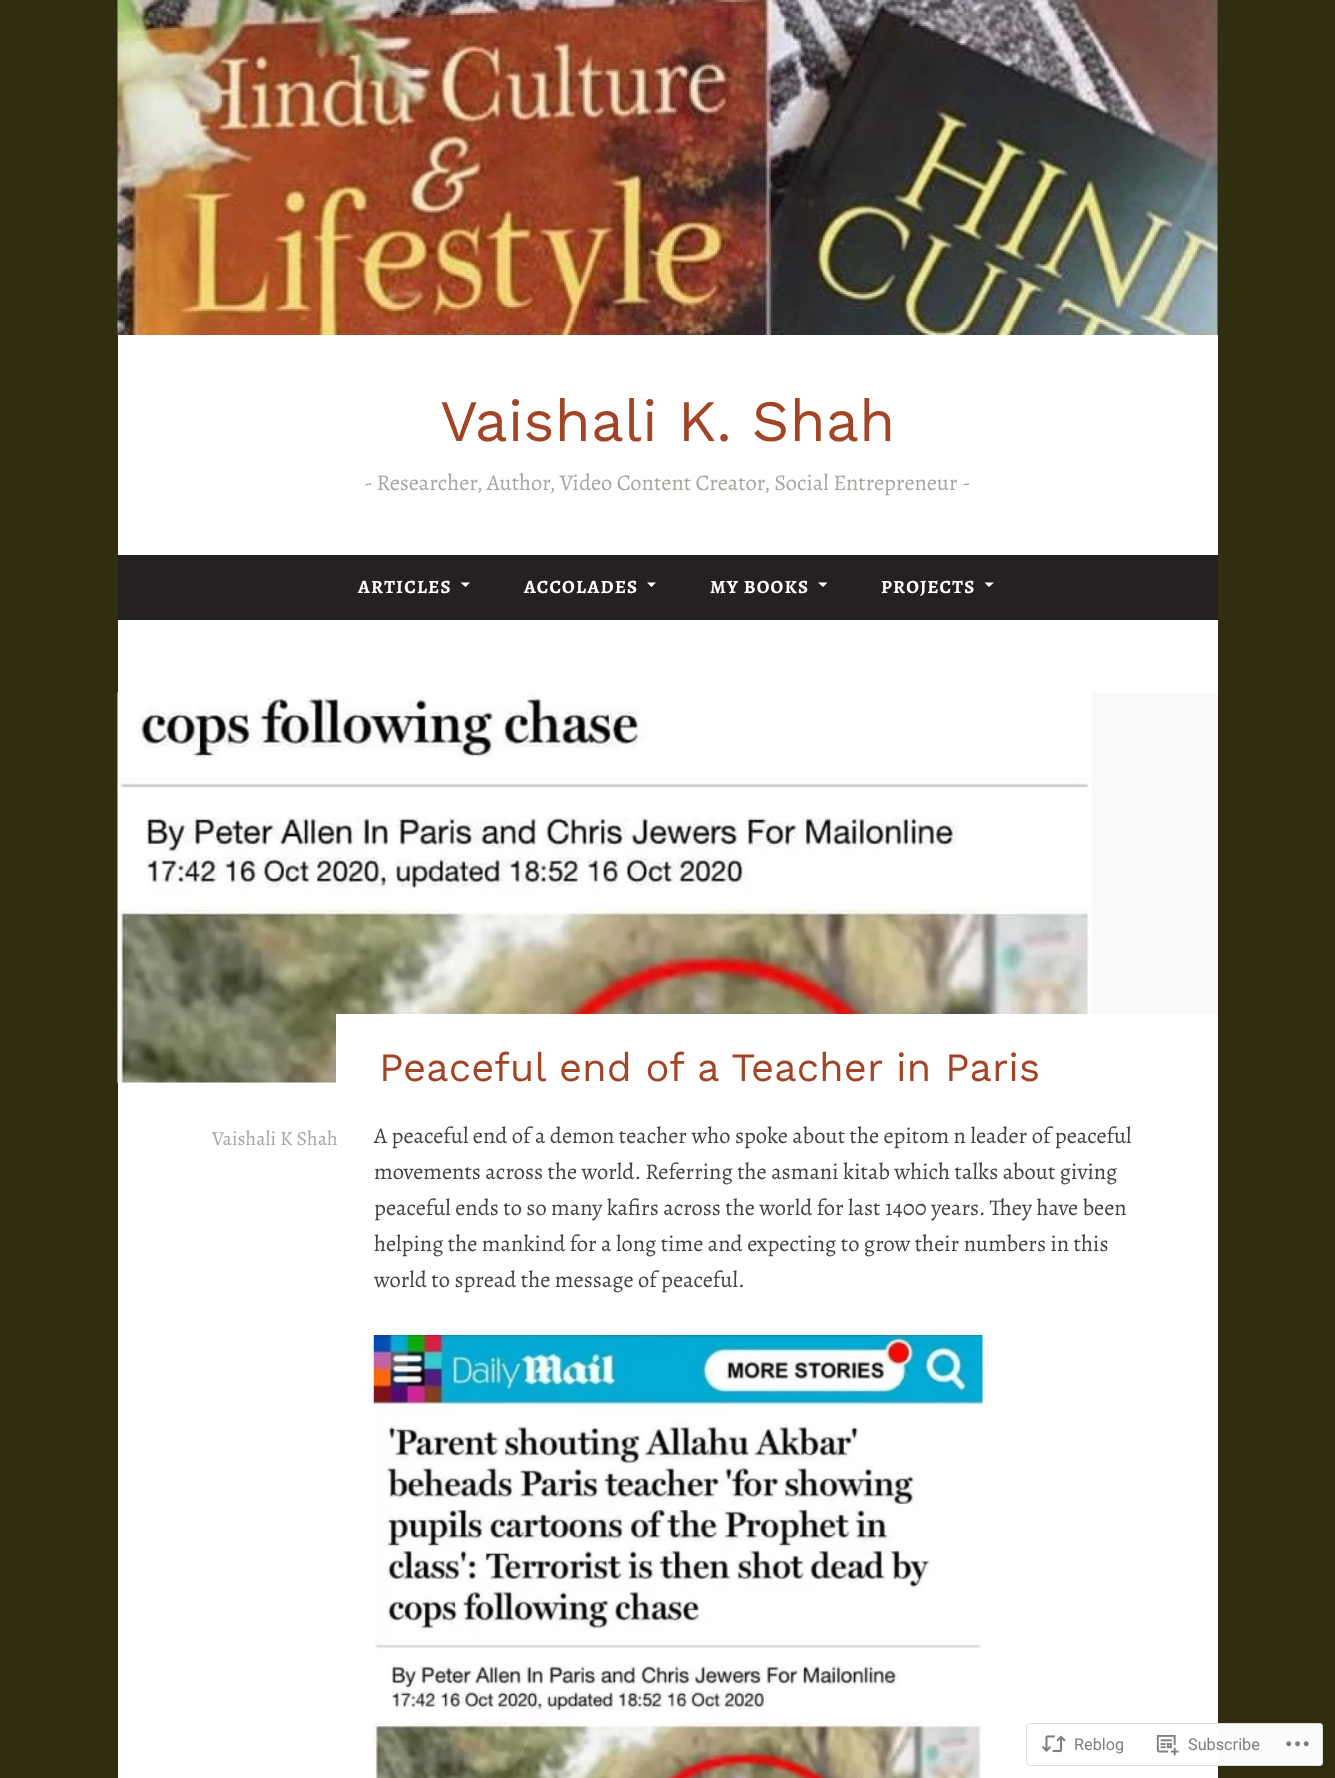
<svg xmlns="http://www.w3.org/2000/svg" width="1335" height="1778">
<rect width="100%" height="100%" fill="#312d10"/>
<image x="117" y="0" width="1101" height="335" href="media/1.png"/>
<rect x="118" y="335" width="1100" height="220" fill="#fff"/>
<text x="440" y="441" style="font-family:Work Sans;font-size:58.75px;fill:#a24526">Vaishali K. Shah</text>
<text x="364" y="490" style="font-family:Alegreya;font-size:22.5px;fill:#a8a6a1">- Researcher, Author, Video Content Creator, Social Entrepreneur</text>
<text x="962" y="490" style="font-family:Alegreya;font-size:22.5px;fill:#a8a6a1">-</text>
<rect x="118" y="555" width="1100" height="65" fill="#252120"/>
<text x="358" y="593" style="font-family:Alegreya;font-size:18.75px;font-weight:bold;letter-spacing:1.25px;fill:#fff">ARTICLES</text>
<path d="M460.5 582.5h9.5l-4.5 4.5z" fill="#fff"/>
<text x="524" y="593" style="font-family:Alegreya;font-size:18.75px;font-weight:bold;letter-spacing:1.25px;fill:#fff">ACCOLADES</text>
<path d="M647 582.5h9l-4.5 4.5z" fill="#fff"/>
<text x="710" y="593" style="font-family:Alegreya;font-size:18.75px;font-weight:bold;letter-spacing:1.25px;fill:#fff">MY BOOKS</text>
<path d="M818 582.5h9.5l-4.5 4.5z" fill="#fff"/>
<text x="881" y="593" style="font-family:Alegreya;font-size:18.75px;font-weight:bold;letter-spacing:1.25px;fill:#fff">PROJECTS</text>
<path d="M984.5 582.5h9.5l-5 4.5z" fill="#fff"/>
<rect x="118" y="620" width="1100" height="1158" fill="#fff"/>
<rect x="118" y="693" width="1100" height="390" fill="#f8f9f8"/>
<image x="117" y="692" width="975" height="391" href="media/2.png"/>
<rect x="336" y="1014" width="882" height="69" fill="#fff"/>
<text x="379" y="1081" style="font-family:Work Sans;font-size:40px;fill:#a24526">Peaceful end of a Teacher in Paris</text>
<text x="212" y="1145" style="font-family:Alegreya;font-size:20px;fill:#a8a6a1">Vaishali K Shah</text>
<text x="374" y="1143" style="font-family:Alegreya;font-size:22.5px;fill:#444340">A peaceful end of a demon teacher who spoke about the epitom n leader of peaceful</text>
<text x="374" y="1179" style="font-family:Alegreya;font-size:22.5px;fill:#444340">movements across the world. Referring the asmani kitab which talks about giving</text>
<text x="374" y="1215" style="font-family:Alegreya;font-size:22.5px;fill:#444340">peaceful ends to so many kafirs across the world for last 1400 years. They have been</text>
<text x="374" y="1251" style="font-family:Alegreya;font-size:22.5px;fill:#444340">helping the mankind for a long time and expecting to grow their numbers in this</text>
<text x="374" y="1287" style="font-family:Alegreya;font-size:22.5px;fill:#444340">world to spread the message of peaceful.</text>
<image x="373" y="1335" width="610" height="443" href="media/3.png"/>
<rect x="1026" y="1723" width="297" height="43" rx="4" fill="#fffffffa"/>
<rect x="1026.5" y="1723.5" width="296" height="42" rx="3.5" fill="none" stroke="#dcdcdefa"/>
<image x="1041" y="1735" width="25" height="18" href="media/4.png"/>
<text x="1074" y="1750" style="font-family:Roboto;font-size:16.25px;fill:#7b7f85">Reblog</text>
<image x="1156" y="1735" width="23" height="21" href="media/5.png"/>
<text x="1188" y="1750" style="font-family:Roboto;font-size:16.25px;fill:#7b7f85">Subscribe</text>
<image x="1286" y="1741" width="23" height="6" href="media/6.png"/>
</svg>
